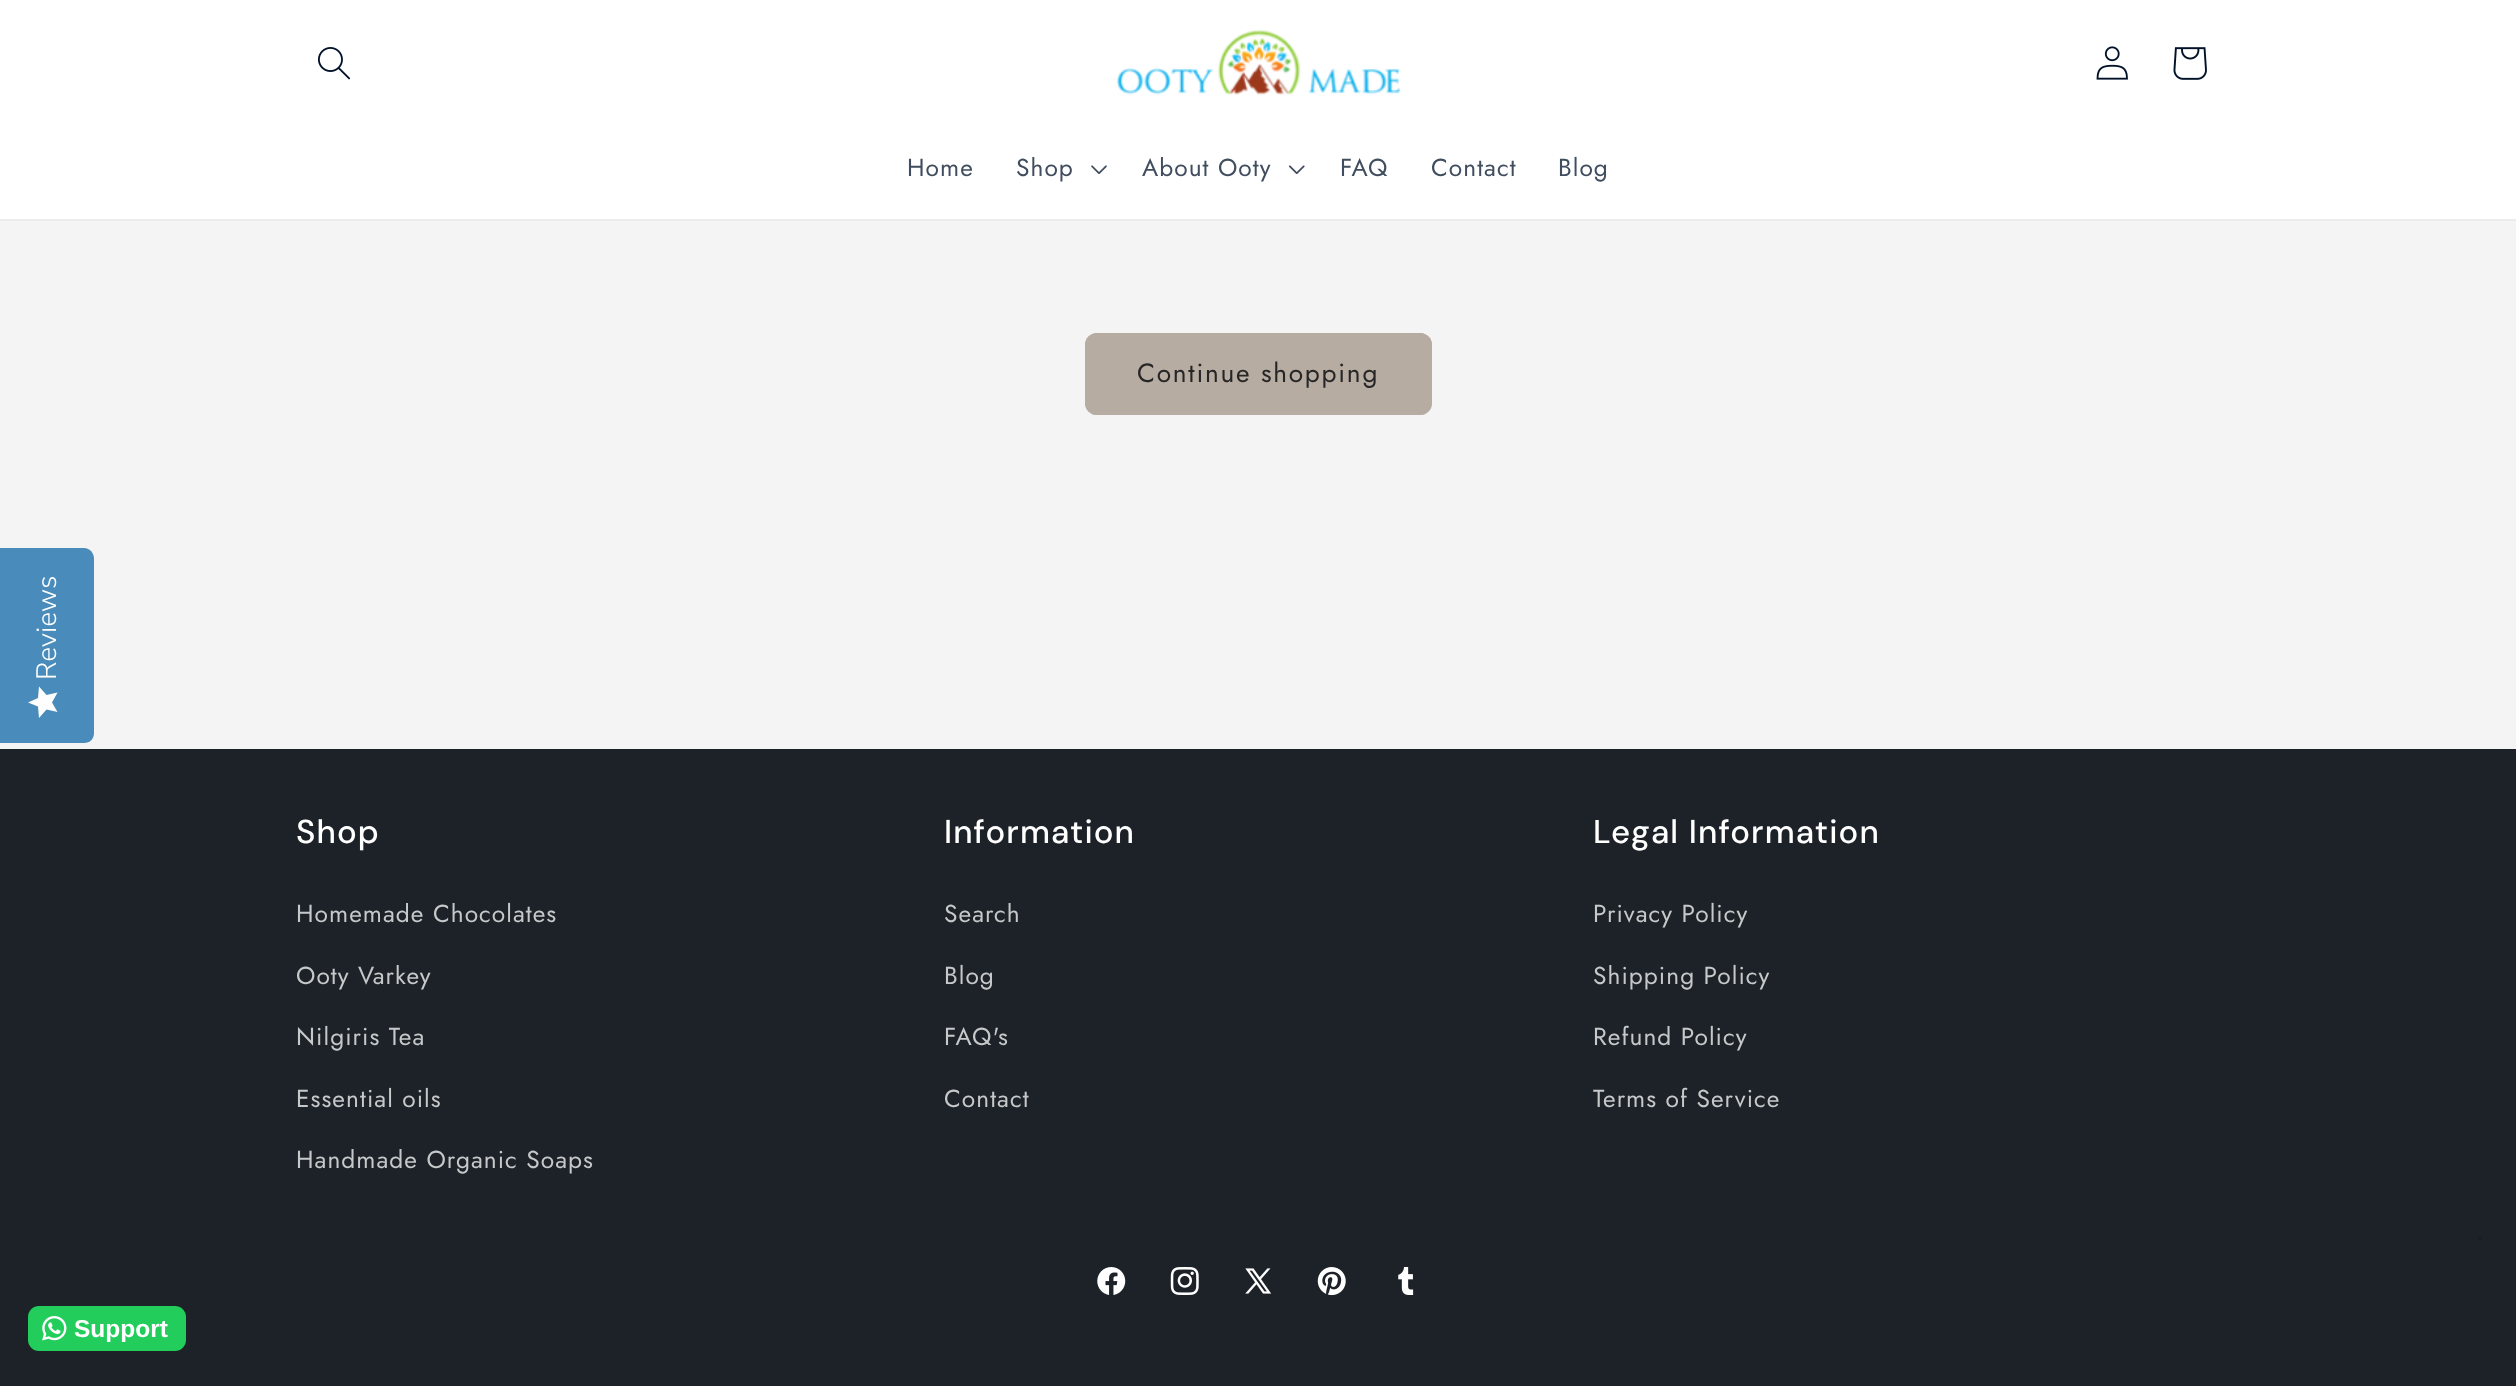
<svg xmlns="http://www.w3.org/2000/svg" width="2516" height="1386">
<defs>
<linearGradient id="g1" gradientUnits="userSpaceOnUse" x1="28" y1="718" x2="28" y2="687"><stop offset="1" stop-color="#fefefe"/><stop offset="1" stop-color="#eaeaea"/></linearGradient>
</defs>
<rect width="100%" height="100%" fill="#f4f4f4"/>
<rect width="2516" height="219" fill="#fff"/>
<rect y="219" width="2516" height="2" fill="#ebecee"/>
<image x="318" y="47" width="32" height="33" href="media/1.png"/>
<image x="1116" y="30" width="285" height="65" href="media/2.png"/>
<image x="2096" y="46" width="32" height="34" href="media/3.png"/>
<image x="2173" y="47" width="34" height="33" href="media/4.png"/>
<text x="907" y="176" style="font-family:Jost;font-size:24.5px;letter-spacing:1.05px;fill:#404d5e">Home</text>
<text x="1016" y="176" style="font-family:Jost;font-size:24.5px;letter-spacing:1.05px;fill:#404d5e">Shop</text>
<image x="1091" y="165" width="16" height="9" href="media/5.png"/>
<text x="1142" y="176" style="font-family:Jost;font-size:24.5px;letter-spacing:1.05px;fill:#404d5e">About Ooty</text>
<image x="1288" y="165" width="17" height="10" href="media/6.png"/>
<text x="1340" y="176" style="font-family:Jost;font-size:24.5px;letter-spacing:1.05px;fill:#404d5e">FAQ</text>
<text x="1431" y="176" style="font-family:Jost;font-size:24.5px;letter-spacing:1.05px;fill:#404d5e">Contact</text>
<text x="1558" y="176" style="font-family:Jost;font-size:24.5px;letter-spacing:1.05px;fill:#404d5e">Blog</text>
<rect x="1085" y="333" width="347" height="82" rx="12" fill="#b7aca2"/>
<rect x="1086" y="334" width="345" height="80" rx="11" fill="none" stroke="#b7aca2" stroke-width="2"/>
<text x="1137" y="382" style="font-family:Jost;font-size:26.25px;letter-spacing:1.75px;fill:#262626">Continue shopping</text>
<path d="M0 743v-195h84c6 0 10 5 10 11v174c0 6-4 10-10 10z" fill="#498cbc"/>
<text x="56" y="680" transform="rotate(-90 56 680)" style="font-family:Nunito Sans;font-size:28px;font-weight:300;fill:#fff">Reviews</text>
<path d="M52 702.5l5.5-10l-11 2.5l-7.5-8.5l-1 11.5l-10 4.5l10 4l1 11.5l7.5-8.5l11 2.5z" fill="url(#g1)"/>
<rect y="749" width="2516" height="637" fill="#1c2228"/>
<text x="296" y="843" style="font-family:DM Sans;font-size:33px;font-weight:500;letter-spacing:1.1px;fill:#fff">Shop</text>
<text x="296" y="922" style="font-family:Jost;font-size:24.5px;letter-spacing:1.05px;fill:#c6c8c9">Homemade Chocolates</text>
<text x="296" y="984" style="font-family:Jost;font-size:24.5px;letter-spacing:1.05px;fill:#c6c8c9">Ooty Varkey</text>
<text x="296" y="1045" style="font-family:Jost;font-size:24.5px;letter-spacing:1.05px;fill:#c6c8c9">Nilgiris Tea</text>
<text x="296" y="1107" style="font-family:Jost;font-size:24.5px;letter-spacing:1.05px;fill:#c6c8c9">Essential oils</text>
<text x="296" y="1168" style="font-family:Jost;font-size:24.5px;letter-spacing:1.05px;fill:#c6c8c9">Handmade Organic Soaps</text>
<text x="944" y="843" style="font-family:DM Sans;font-size:33px;font-weight:500;letter-spacing:1.1px;fill:#fff">Information</text>
<text x="944" y="922" style="font-family:Jost;font-size:24.5px;letter-spacing:1.05px;fill:#c6c8c9">Search</text>
<text x="944" y="984" style="font-family:Jost;font-size:24.5px;letter-spacing:1.05px;fill:#c6c8c9">Blog</text>
<text x="944" y="1045" style="font-family:Jost;font-size:24.5px;letter-spacing:1.05px;fill:#c6c8c9">FAQ's</text>
<text x="944" y="1107" style="font-family:Jost;font-size:24.5px;letter-spacing:1.05px;fill:#c6c8c9">Contact</text>
<text x="1593" y="843" style="font-family:DM Sans;font-size:33px;font-weight:500;letter-spacing:1.1px;fill:#fff">Legal Information</text>
<text x="1593" y="922" style="font-family:Jost;font-size:24.5px;letter-spacing:1.05px;fill:#c6c8c9">Privacy Policy</text>
<text x="1593" y="984" style="font-family:Jost;font-size:24.5px;letter-spacing:1.05px;fill:#c6c8c9">Shipping Policy</text>
<text x="1593" y="1045" style="font-family:Jost;font-size:24.5px;letter-spacing:1.05px;fill:#c6c8c9">Refund Policy</text>
<text x="1593" y="1107" style="font-family:Jost;font-size:24.5px;letter-spacing:1.05px;fill:#c6c8c9">Terms of Service</text>
<image x="1097" y="1267" width="29" height="28" href="media/7.png"/>
<image x="1170" y="1267" width="29" height="28" href="media/8.png"/>
<image x="1245" y="1268" width="27" height="26" href="media/9.png"/>
<image x="1317" y="1267" width="29" height="29" href="media/10.png"/>
<image x="1398" y="1267" width="16" height="28" href="media/11.png"/>
<circle cx="2480" cy="1238" r="2" fill="#191e23"/>
<rect x="28" y="1306" width="158" height="45" rx="11" fill="#22cd5b"/>
<image x="42" y="1316" width="25" height="25" href="media/12.png"/>
<text x="74" y="1337" style="font-family:Liberation Sans;font-size:24.5px;font-weight:bold;fill:#fff">Support</text>
</svg>
